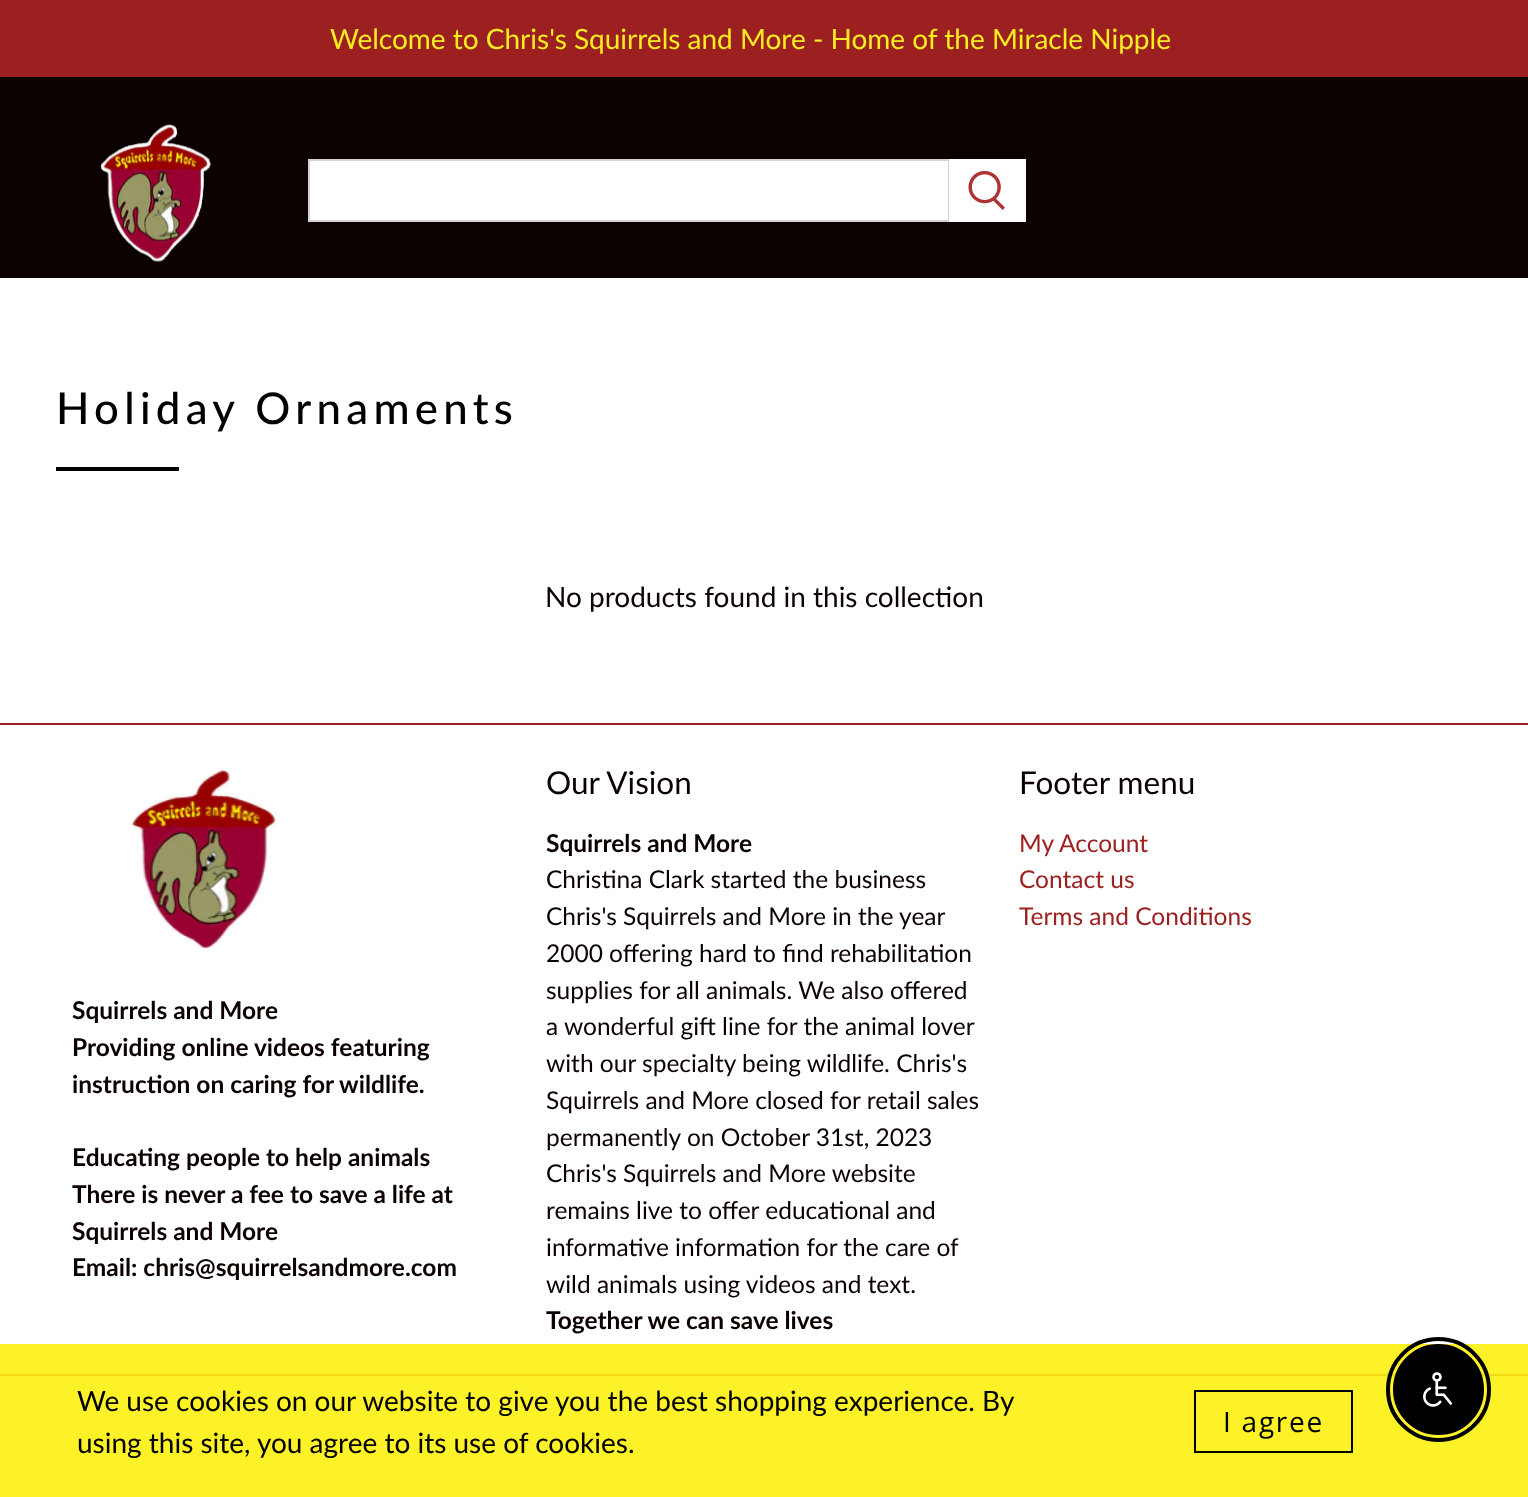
<svg xmlns="http://www.w3.org/2000/svg" width="1528" height="1497">
<rect width="100%" height="100%" fill="#fff"/>
<rect width="1528" height="77" fill="#9c2020"/>
<text x="330" y="49" style="font-family:Lato;font-size:28px;fill:#f9ec21">Welcome to Chris's Squirrels and More - Home of the Miracle Nipple</text>
<rect y="77" width="1528" height="201" fill="#0c0101"/>
<image x="100" y="124" width="111" height="138" href="media/1.png"/>
<rect x="309" y="160" width="640" height="61" fill="#fff" stroke="#d3d3d3" stroke-width="2"/>
<rect x="949" y="159" width="77" height="63" fill="#fff"/>
<image x="968" y="170" width="37" height="40" href="media/2.png"/>
<text x="56" y="424" style="font-family:Lato;font-size:43.75px;font-weight:500;letter-spacing:5.25px;fill:#000">Holiday Ornaments</text>
<rect x="56" y="467" width="123" height="4" fill="#000"/>
<text x="545" y="607" style="font-family:Lato;font-size:28px;fill:#0c0101">No products found in this collection</text>
<rect y="723" width="1528" height="2" fill="#9c2020"/>
<rect y="1374" width="1528" height="2" fill="#9c2020"/>
<text x="546" y="794" style="font-family:Lato;font-size:31.5px;fill:#0c0101">Our Vision</text>
<text x="546" y="852" style="font-family:Lato;font-size:24.5px;font-weight:bold;fill:#0c0101">Squirrels and More</text>
<text x="546" y="888" style="font-family:Lato;font-size:24.5px;fill:#0c0101">Christina Clark started the business</text>
<text x="546" y="925" style="font-family:Lato;font-size:24.5px;fill:#0c0101">Chris's Squirrels and More in the year</text>
<text x="546" y="962" style="font-family:Lato;font-size:24.5px;fill:#0c0101">2000 offering hard to find rehabilitation</text>
<text x="546" y="999" style="font-family:Lato;font-size:24.5px;fill:#0c0101">supplies for all animals. We also offered</text>
<text x="546" y="1035" style="font-family:Lato;font-size:24.5px;fill:#0c0101">a wonderful gift line for the animal lover</text>
<text x="546" y="1072" style="font-family:Lato;font-size:24.5px;fill:#0c0101">with our specialty being wildlife. Chris's</text>
<text x="546" y="1109" style="font-family:Lato;font-size:24.5px;fill:#0c0101">Squirrels and More closed for retail sales</text>
<text x="546" y="1146" style="font-family:Lato;font-size:24.5px;fill:#0c0101">permanently on October 31st, 2023</text>
<text x="546" y="1182" style="font-family:Lato;font-size:24.5px;fill:#0c0101">Chris's Squirrels and More website</text>
<text x="546" y="1219" style="font-family:Lato;font-size:24.5px;fill:#0c0101">remains live to offer educational and</text>
<text x="546" y="1256" style="font-family:Lato;font-size:24.5px;fill:#0c0101">informative information for the care of</text>
<text x="546" y="1293" style="font-family:Lato;font-size:24.5px;fill:#0c0101">wild animals using videos and text.</text>
<text x="546" y="1329" style="font-family:Lato;font-size:24.5px;font-weight:bold;fill:#0c0101">Together we can save lives</text>
<text x="1019" y="794" style="font-family:Lato;font-size:31.5px;fill:#0c0101">Footer menu</text>
<text x="1019" y="852" style="font-family:Lato;font-size:24.5px;fill:#9c2020">My Account</text>
<text x="1019" y="888" style="font-family:Lato;font-size:24.5px;fill:#9c2020">Contact us</text>
<text x="1019" y="925" style="font-family:Lato;font-size:24.5px;fill:#9c2020">Terms and Conditions</text>
<image x="129" y="769" width="149" height="180" href="media/3.png"/>
<text x="72" y="1019" style="font-family:Lato;font-size:24.5px;font-weight:bold;fill:#0c0101">Squirrels and More</text>
<text x="72" y="1056" style="font-family:Lato;font-size:24.5px;font-weight:bold;fill:#0c0101">Providing online videos featuring</text>
<text x="72" y="1093" style="font-family:Lato;font-size:24.5px;font-weight:bold;fill:#0c0101">instruction on caring for wildlife.</text>
<text x="72" y="1166" style="font-family:Lato;font-size:24.5px;font-weight:bold;fill:#0c0101">Educating people to help animals</text>
<text x="72" y="1203" style="font-family:Lato;font-size:24.5px;font-weight:bold;fill:#0c0101">There is never a fee to save a life at</text>
<text x="72" y="1240" style="font-family:Lato;font-size:24.5px;font-weight:bold;fill:#0c0101">Squirrels and More</text>
<text x="72" y="1276" style="font-family:Lato;font-size:24.5px;font-weight:bold;fill:#0c0101">Email: chris@squirrelsandmore.com</text>
<rect y="1344" width="1528" height="153" fill="#fdef10e6"/>
<text x="77" y="1411" style="font-family:Lato;font-size:28px;fill:#000">We use cookies on our website to give you the best shopping experience. By</text>
<text x="77" y="1453" style="font-family:Lato;font-size:28px;fill:#000">using this site, you agree to its use of cookies.</text>
<rect x="1195" y="1391" width="157" height="61" fill="none" stroke="#000" stroke-width="2"/>
<text x="1223" y="1432" style="font-family:Open Sans;font-size:28px;letter-spacing:1.75px;fill:#000">I agree</text>
<circle cx="1438.5" cy="1389.5" r="50.5" fill="none" stroke="#000" stroke-width="4"/>
<circle cx="1438.5" cy="1389.5" r="44.5" fill="#000" stroke="#000" stroke-width="2"/>
<image x="1423" y="1372" width="29" height="35" href="media/4.png"/>
</svg>
